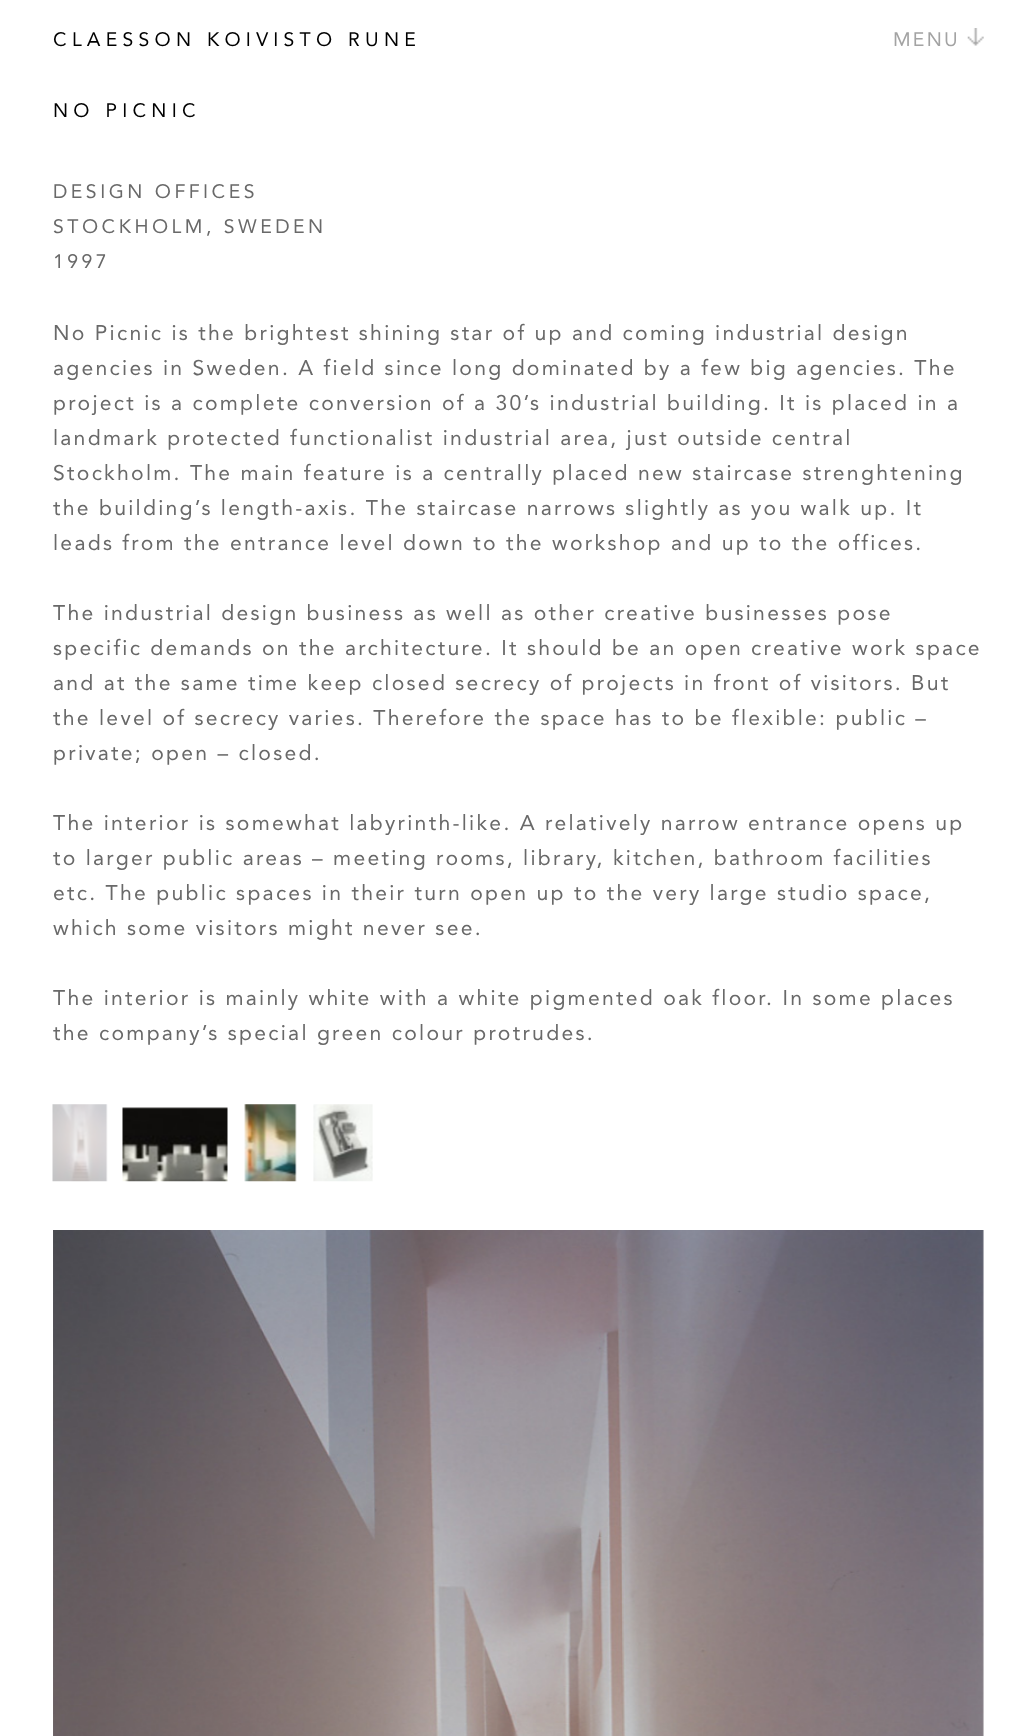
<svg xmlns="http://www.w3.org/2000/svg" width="1036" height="1736">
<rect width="100%" height="100%" fill="#fff"/>
<text x="53" y="46" style="font-family:Avenir;font-size:19.4px;letter-spacing:5.25px;fill:#000">CLAESSON KOIVISTO RUNE</text>
<text x="893" y="46" style="font-family:Avenir;font-size:19.4px;letter-spacing:2.27px;fill:#a3a3a3">MENU</text>
<image x="967" y="28" width="17" height="18" href="media/1.png"/>
<text x="53" y="117" style="font-family:Avenir;font-size:19.4px;letter-spacing:5.25px;fill:#000">NO PICNIC</text>
<text x="53" y="198" style="font-family:Avenir;font-size:19.4px;letter-spacing:3.5px;fill:#696969">DESIGN OFFICES</text>
<text x="53" y="233" style="font-family:Avenir;font-size:19.4px;letter-spacing:3.5px;fill:#696969">STOCKHOLM, SWEDEN</text>
<text x="53" y="268" style="font-family:Avenir;font-size:19.4px;letter-spacing:3.5px;fill:#696969">1997</text>
<text x="53" y="340" style="font-family:Avenir;font-size:21.2px;letter-spacing:2.27px;fill:#696969">No Picnic is the brightest shining star of up and coming industrial design</text>
<text x="53" y="375" style="font-family:Avenir;font-size:21.2px;letter-spacing:2.27px;fill:#696969">agencies in Sweden. A field since long dominated by a few big agencies. The</text>
<text x="53" y="410" style="font-family:Avenir;font-size:21.2px;letter-spacing:2.27px;fill:#696969">project is a complete conversion of a 30’s industrial building. It is placed in a</text>
<text x="53" y="445" style="font-family:Avenir;font-size:21.2px;letter-spacing:2.27px;fill:#696969">landmark protected functionalist industrial area, just outside central</text>
<text x="53" y="480" style="font-family:Avenir;font-size:21.2px;letter-spacing:2.27px;fill:#696969">Stockholm. The main feature is a centrally placed new staircase strenghtening</text>
<text x="53" y="515" style="font-family:Avenir;font-size:21.2px;letter-spacing:2.27px;fill:#696969">the building’s length-axis. The staircase narrows slightly as you walk up. It</text>
<text x="53" y="550" style="font-family:Avenir;font-size:21.2px;letter-spacing:2.27px;fill:#696969">leads from the entrance level down to the workshop and up to the offices.</text>
<text x="53" y="620" style="font-family:Avenir;font-size:21.2px;letter-spacing:2.27px;fill:#696969">The industrial design business as well as other creative businesses pose</text>
<text x="53" y="655" style="font-family:Avenir;font-size:21.2px;letter-spacing:2.27px;fill:#696969">specific demands on the architecture. It should be an open creative work space</text>
<text x="53" y="690" style="font-family:Avenir;font-size:21.2px;letter-spacing:2.27px;fill:#696969">and at the same time keep closed secrecy of projects in front of visitors. But</text>
<text x="53" y="725" style="font-family:Avenir;font-size:21.2px;letter-spacing:2.27px;fill:#696969">the level of secrecy varies. Therefore the space has to be flexible: public –</text>
<text x="53" y="760" style="font-family:Avenir;font-size:21.2px;letter-spacing:2.27px;fill:#696969">private; open – closed.</text>
<text x="53" y="830" style="font-family:Avenir;font-size:21.2px;letter-spacing:2.27px;fill:#696969">The interior is somewhat labyrinth-like. A relatively narrow entrance opens up</text>
<text x="53" y="865" style="font-family:Avenir;font-size:21.2px;letter-spacing:2.27px;fill:#696969">to larger public areas – meeting rooms, library, kitchen, bathroom facilities</text>
<text x="53" y="900" style="font-family:Avenir;font-size:21.2px;letter-spacing:2.27px;fill:#696969">etc. The public spaces in their turn open up to the very large studio space,</text>
<text x="53" y="935" style="font-family:Avenir;font-size:21.2px;letter-spacing:2.27px;fill:#696969">which some visitors might never see.</text>
<text x="53" y="1005" style="font-family:Avenir;font-size:21.2px;letter-spacing:2.27px;fill:#696969">The interior is mainly white with a white pigmented oak floor. In some places</text>
<text x="53" y="1040" style="font-family:Avenir;font-size:21.2px;letter-spacing:2.27px;fill:#696969">the company’s special green colour protrudes.</text>
<image x="52" y="1104" width="56" height="78" href="media/2.png"/>
<image x="122" y="1107" width="106" height="75" href="media/3.png"/>
<image x="244" y="1104" width="53" height="78" href="media/4.png"/>
<image x="313" y="1104" width="60" height="78" href="media/5.png"/>
<image x="53" y="1230" width="931" height="506" href="media/6.png"/>
</svg>
